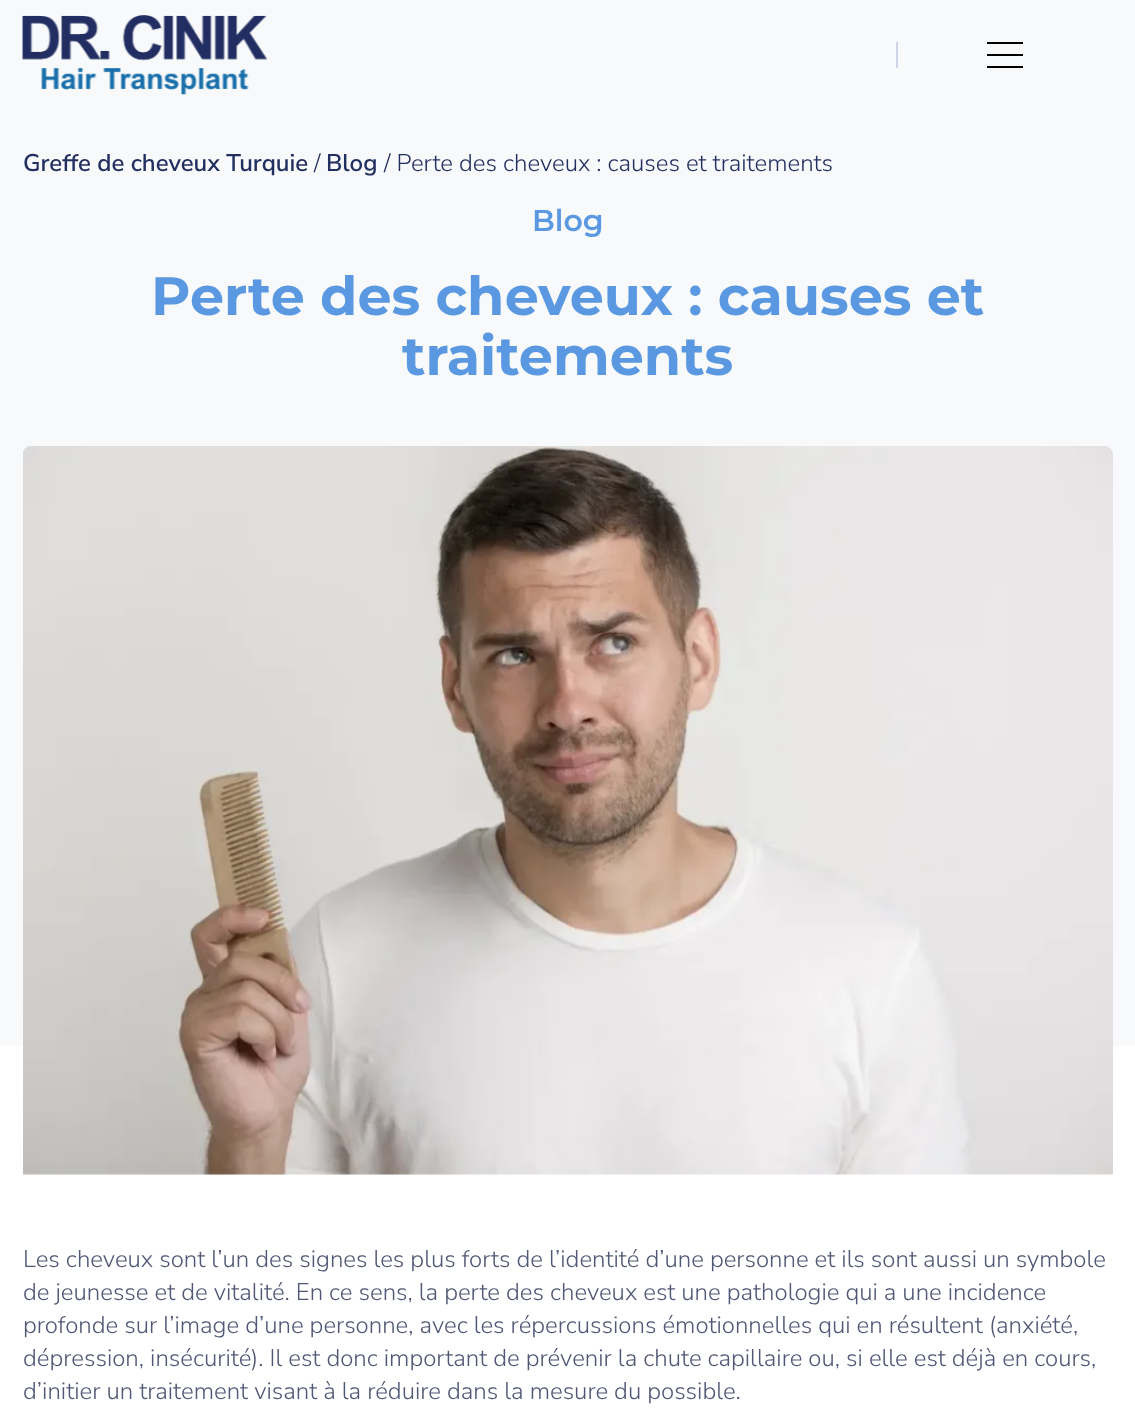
<svg xmlns="http://www.w3.org/2000/svg" width="1135" height="1414">
<rect width="100%" height="100%" fill="#fff"/>
<rect width="1135" height="1046" fill="#f8f9fa"/>
<image x="22" y="15" width="246" height="80" href="media/1.png"/>
<rect x="896" y="42" width="2" height="26" fill="#d0d4e7"/>
<rect x="987" y="42" width="36" height="2" fill="#000"/>
<rect x="987" y="54" width="36" height="2" fill="#000"/>
<rect x="987" y="66" width="36" height="2" fill="#000"/>
<text x="23" y="171" style="font-family:Nunito Sans;font-size:24px;font-weight:600;fill:#222f61">Greffe de cheveux Turquie</text>
<text x="314" y="171" style="font-family:Nunito Sans;font-size:24px;font-weight:300;fill:#222f61">/</text>
<text x="326" y="171" style="font-family:Nunito Sans;font-size:24px;font-weight:600;fill:#222f61">Blog</text>
<text x="384" y="171" style="font-family:Nunito Sans;font-size:24px;font-weight:300;fill:#222f61">/ Perte des cheveux : causes et traitements</text>
<text x="532" y="231" style="font-family:Montserrat;font-size:30px;font-weight:600;fill:#5a99e2">Blog</text>
<text x="151" y="315" style="font-family:Montserrat;font-size:54px;font-weight:bold;fill:#5a99e2">Perte des cheveux : causes et</text>
<text x="402" y="375" style="font-family:Montserrat;font-size:54px;font-weight:bold;fill:#5a99e2">traitements</text>
<image x="23" y="446" width="1090" height="729" href="media/2.png"/>
<text x="23" y="1267" style="font-family:Nunito Sans;font-size:24px;font-weight:300;fill:#515875">Les cheveux sont l’un des signes les plus forts de l’identité d’une personne et ils sont aussi un symbole</text>
<text x="23" y="1300" style="font-family:Nunito Sans;font-size:24px;font-weight:300;fill:#515875">de jeunesse et de vitalité. En ce sens, la perte des cheveux est une pathologie qui a une incidence</text>
<text x="23" y="1333" style="font-family:Nunito Sans;font-size:24px;font-weight:300;fill:#515875">profonde sur l’image d’une personne, avec les répercussions émotionnelles qui en résultent (anxiété,</text>
<text x="23" y="1366" style="font-family:Nunito Sans;font-size:24px;font-weight:300;fill:#515875">dépression, insécurité). Il est donc important de prévenir la chute capillaire ou, si elle est déjà en cours,</text>
<text x="23" y="1399" style="font-family:Nunito Sans;font-size:24px;font-weight:300;fill:#515875">d’initier un traitement visant à la réduire dans la mesure du possible.</text>
</svg>
